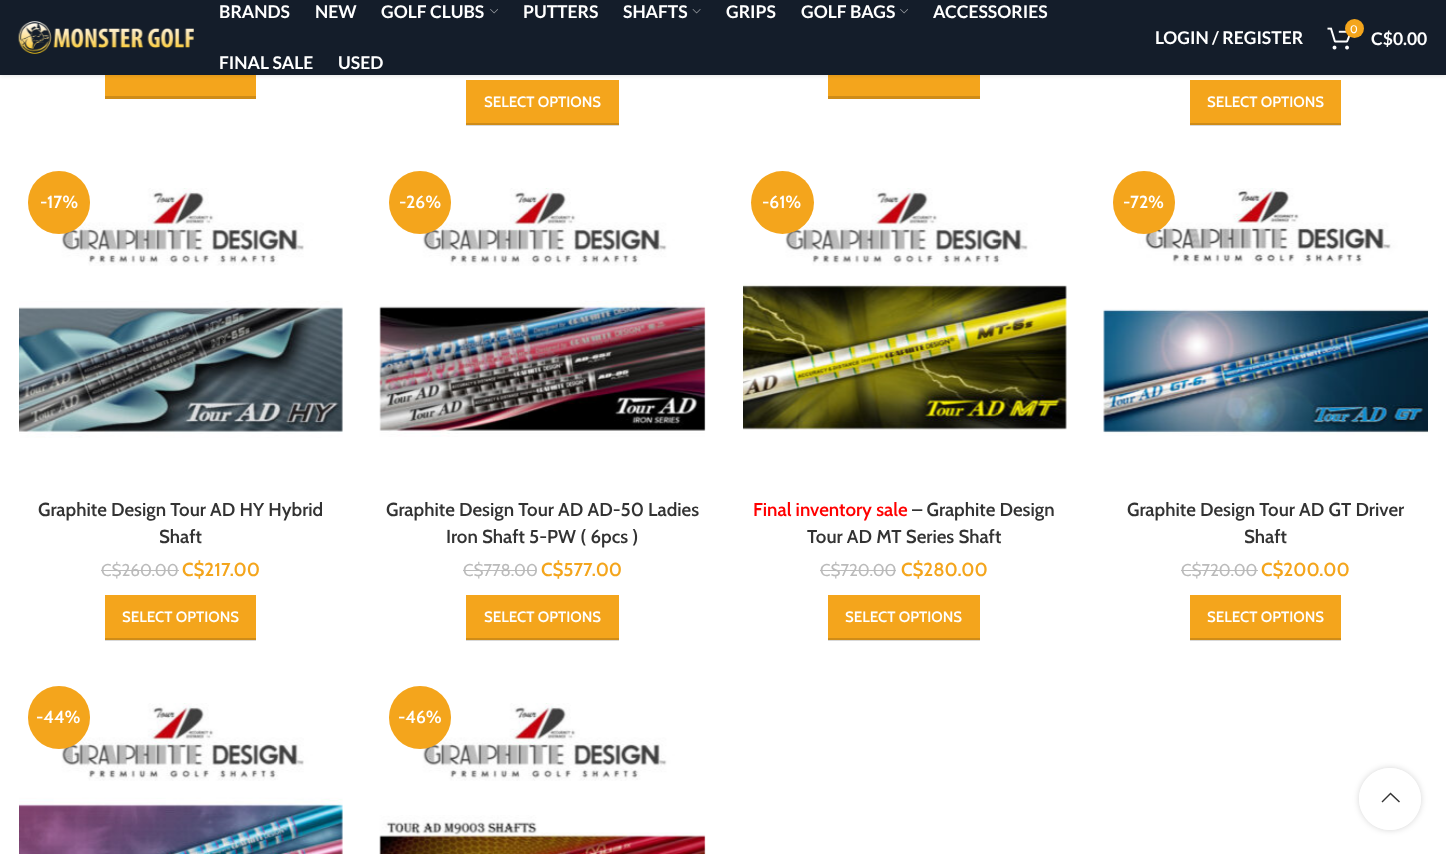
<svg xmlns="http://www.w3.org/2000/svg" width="1446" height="854">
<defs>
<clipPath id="clip1"><path d="M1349 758h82v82h-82zm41 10c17 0 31 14 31 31c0 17-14 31-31 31c-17 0-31-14-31-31c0-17 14-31 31-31z" clip-rule="evenodd"/></clipPath>
</defs>
<rect width="100%" height="100%" fill="#fff"/>
<rect x="1190" y="640" width="151" height="1" fill="#d9d9d9"/>
<rect x="828" y="640" width="152" height="1" fill="#d9d9d9"/>
<rect x="466" y="640" width="153" height="1" fill="#d9d9d9"/>
<rect x="105" y="640" width="151" height="1" fill="#d9d9d9"/>
<rect x="1190" y="125" width="151" height="1" fill="#d9d9d9"/>
<rect x="466" y="125" width="153" height="1" fill="#d9d9d9"/>
<rect x="105" y="75" width="151" height="21" fill="#f4a51c"/>
<rect x="828" y="75" width="152" height="21" fill="#f4a51c"/>
<rect x="466" y="80" width="153" height="43" fill="#f4a51c"/>
<rect x="1190" y="80" width="151" height="43" fill="#f4a51c"/>
<rect y="1" width="1446" height="75" fill="#0000001a" filter="blur(2px)"/>
<rect width="1446" height="75" fill="#141d2a"/>
<image x="18" y="21" width="176" height="33" href="media/1.png"/>
<text x="219" y="18" style="font-family:Lato;font-size:17.5px;font-weight:bold;fill:#fff">BRANDS</text>
<text x="315" y="18" style="font-family:Lato;font-size:17.5px;font-weight:bold;fill:#fff">NEW</text>
<text x="381" y="18" style="font-family:Lato;font-size:17.5px;font-weight:bold;fill:#fff">GOLF CLUBS</text>
<image x="490" y="9" width="8" height="5" href="media/2.png"/>
<text x="523" y="18" style="font-family:Lato;font-size:17.5px;font-weight:bold;fill:#fff">PUTTERS</text>
<text x="623" y="18" style="font-family:Lato;font-size:17.5px;font-weight:bold;fill:#fff">SHAFTS</text>
<image x="692" y="9" width="9" height="5" href="media/3.png"/>
<text x="726" y="18" style="font-family:Lato;font-size:17.5px;font-weight:bold;fill:#fff">GRIPS</text>
<text x="801" y="18" style="font-family:Lato;font-size:17.5px;font-weight:bold;fill:#fff">GOLF BAGS</text>
<image x="900" y="9" width="8" height="5" href="media/2.png"/>
<text x="933" y="18" style="font-family:Lato;font-size:17.5px;font-weight:bold;fill:#fff">ACCESSORIES</text>
<text x="219" y="69" style="font-family:Lato;font-size:17.5px;font-weight:bold;fill:#fff">FINAL SALE</text>
<text x="338" y="69" style="font-family:Lato;font-size:17.5px;font-weight:bold;fill:#fff">USED</text>
<text x="1155" y="44" style="font-family:Lato;font-size:17.5px;font-weight:bold;fill:#fff">LOGIN / REGISTER</text>
<image x="1327" y="27" width="24" height="23" href="media/4.png"/>
<circle cx="1354.5" cy="28.5" r="9.5" fill="#f4a51c"/>
<text x="1350" y="33" style="font-family:Cabin;font-size:11px;fill:#fff">0</text>
<text x="1371" y="45" style="font-family:Lato;font-size:17.5px;font-weight:bold;fill:#fff">C$0.00</text>
<rect x="105" y="96" width="151" height="3" fill="#cf8c18"/>
<rect x="828" y="96" width="152" height="3" fill="#cf8c18"/>
<rect x="466" y="123" width="153" height="2" fill="#cf8c18"/>
<text x="484" y="107" style="font-family:Cabin;font-size:15px;font-weight:600;fill:#fff">SELECT OPTIONS</text>
<rect x="1190" y="123" width="151" height="2" fill="#cf8c18"/>
<text x="1207" y="107" style="font-family:Cabin;font-size:15px;font-weight:600;fill:#fff">SELECT OPTIONS</text>
<image x="19" y="188" width="324" height="250" href="media/5.png"/>
<rect x="28" y="171" width="62" height="63" rx="31" fill="#f4a51c"/>
<text x="40" y="208" style="font-family:Cabin;font-size:17.5px;font-weight:600;fill:#fff">-17%</text>
<text x="38" y="516" style="font-family:Cabin;font-size:18.75px;font-weight:600;fill:#333">Graphite Design Tour AD HY Hybrid</text>
<text x="159" y="543" style="font-family:Cabin;font-size:18.75px;font-weight:600;fill:#333">Shaft</text>
<text x="101" y="576" style="font-family:Cabin;font-size:17px;fill:#bbb">C$260.00</text>
<rect x="101" y="570" width="78" height="1" fill="#bbb"/>
<text x="182" y="576" style="font-family:Cabin;font-size:18.75px;font-weight:600;fill:#f4a51c">C$217.00</text>
<rect x="105" y="595" width="151" height="43" fill="#f4a51c"/>
<rect x="105" y="638" width="151" height="2" fill="#cf8c18"/>
<text x="122" y="622" style="font-family:Cabin;font-size:15px;font-weight:600;fill:#fff">SELECT OPTIONS</text>
<image x="379" y="188" width="327" height="249" href="media/6.png"/>
<rect x="389" y="171" width="62" height="63" rx="31" fill="#f4a51c"/>
<text x="399" y="208" style="font-family:Cabin;font-size:17.5px;font-weight:600;fill:#fff">-26%</text>
<text x="386" y="516" style="font-family:Cabin;font-size:18.75px;font-weight:600;fill:#333">Graphite Design Tour AD AD-50 Ladies</text>
<text x="446" y="543" style="font-family:Cabin;font-size:18.75px;font-weight:600;fill:#333">Iron Shaft 5-PW ( 6pcs )</text>
<text x="463" y="576" style="font-family:Cabin;font-size:17px;fill:#bbb">C$778.00</text>
<rect x="463" y="570" width="73" height="1" fill="#bbb"/>
<text x="541" y="576" style="font-family:Cabin;font-size:18.75px;font-weight:600;fill:#f4a51c">C$577.00</text>
<rect x="466" y="595" width="153" height="43" fill="#f4a51c"/>
<rect x="466" y="638" width="153" height="2" fill="#cf8c18"/>
<text x="484" y="622" style="font-family:Cabin;font-size:15px;font-weight:600;fill:#fff">SELECT OPTIONS</text>
<image x="743" y="188" width="324" height="242" href="media/7.png"/>
<circle cx="782.5" cy="202.5" r="31.5" fill="#f4a51c"/>
<text x="762" y="208" style="font-family:Cabin;font-size:17.5px;font-weight:600;fill:#fff">-61%</text>
<text x="753" y="516" style="font-family:Cabin;font-size:18.75px;font-weight:600;fill:#f00">Final inventory sale</text>
<text x="912" y="516" style="font-family:Cabin;font-size:18.75px;font-weight:600;fill:#333">– Graphite Design</text>
<text x="807" y="543" style="font-family:Cabin;font-size:18.75px;font-weight:600;fill:#333">Tour AD MT Series Shaft</text>
<text x="820" y="576" style="font-family:Cabin;font-size:17px;fill:#bbb">C$720.00</text>
<rect x="820" y="570" width="76" height="1" fill="#bbb"/>
<text x="901" y="576" style="font-family:Cabin;font-size:18.75px;font-weight:600;fill:#f4a51c">C$280.00</text>
<rect x="828" y="595" width="152" height="43" fill="#f4a51c"/>
<rect x="828" y="638" width="152" height="2" fill="#cf8c18"/>
<text x="845" y="622" style="font-family:Cabin;font-size:15px;font-weight:600;fill:#fff">SELECT OPTIONS</text>
<image x="1103" y="188" width="325" height="248" href="media/8.png"/>
<rect x="1113" y="171" width="62" height="63" rx="31" fill="#f4a51c"/>
<text x="1123" y="208" style="font-family:Cabin;font-size:17.5px;font-weight:600;fill:#fff">-72%</text>
<text x="1127" y="516" style="font-family:Cabin;font-size:18.75px;font-weight:600;fill:#333">Graphite Design Tour AD GT Driver</text>
<text x="1244" y="543" style="font-family:Cabin;font-size:18.75px;font-weight:600;fill:#333">Shaft</text>
<text x="1181" y="576" style="font-family:Cabin;font-size:17px;fill:#bbb">C$720.00</text>
<rect x="1181" y="570" width="77" height="1" fill="#bbb"/>
<text x="1261" y="576" style="font-family:Cabin;font-size:18.75px;font-weight:600;fill:#f4a51c">C$200.00</text>
<rect x="1190" y="595" width="151" height="43" fill="#f4a51c"/>
<rect x="1190" y="638" width="151" height="2" fill="#cf8c18"/>
<text x="1207" y="622" style="font-family:Cabin;font-size:15px;font-weight:600;fill:#fff">SELECT OPTIONS</text>
<image x="19" y="703" width="324" height="151" href="media/9.png"/>
<rect x="28" y="686" width="62" height="63" rx="31" fill="#f4a51c"/>
<text x="36" y="723" style="font-family:Cabin;font-size:17.5px;font-weight:600;fill:#fff">-44%</text>
<image x="379" y="703" width="327" height="151" href="media/10.png"/>
<rect x="389" y="686" width="62" height="63" rx="31" fill="#f4a51c"/>
<text x="398" y="723" style="font-family:Cabin;font-size:17.5px;font-weight:600;fill:#fff">-46%</text>
<g clip-path="url(#clip1)">
<rect x="1359" y="768" width="62" height="62" rx="31" fill="#0000002b" filter="blur(3px)"/>
</g>
<circle cx="1390" cy="799" r="31" fill="#ffffffe6"/>
<path d="M1399 802.5l1-1l-9.5-9l-9 9l1 1l8-8z" fill="#333"/>
</svg>
